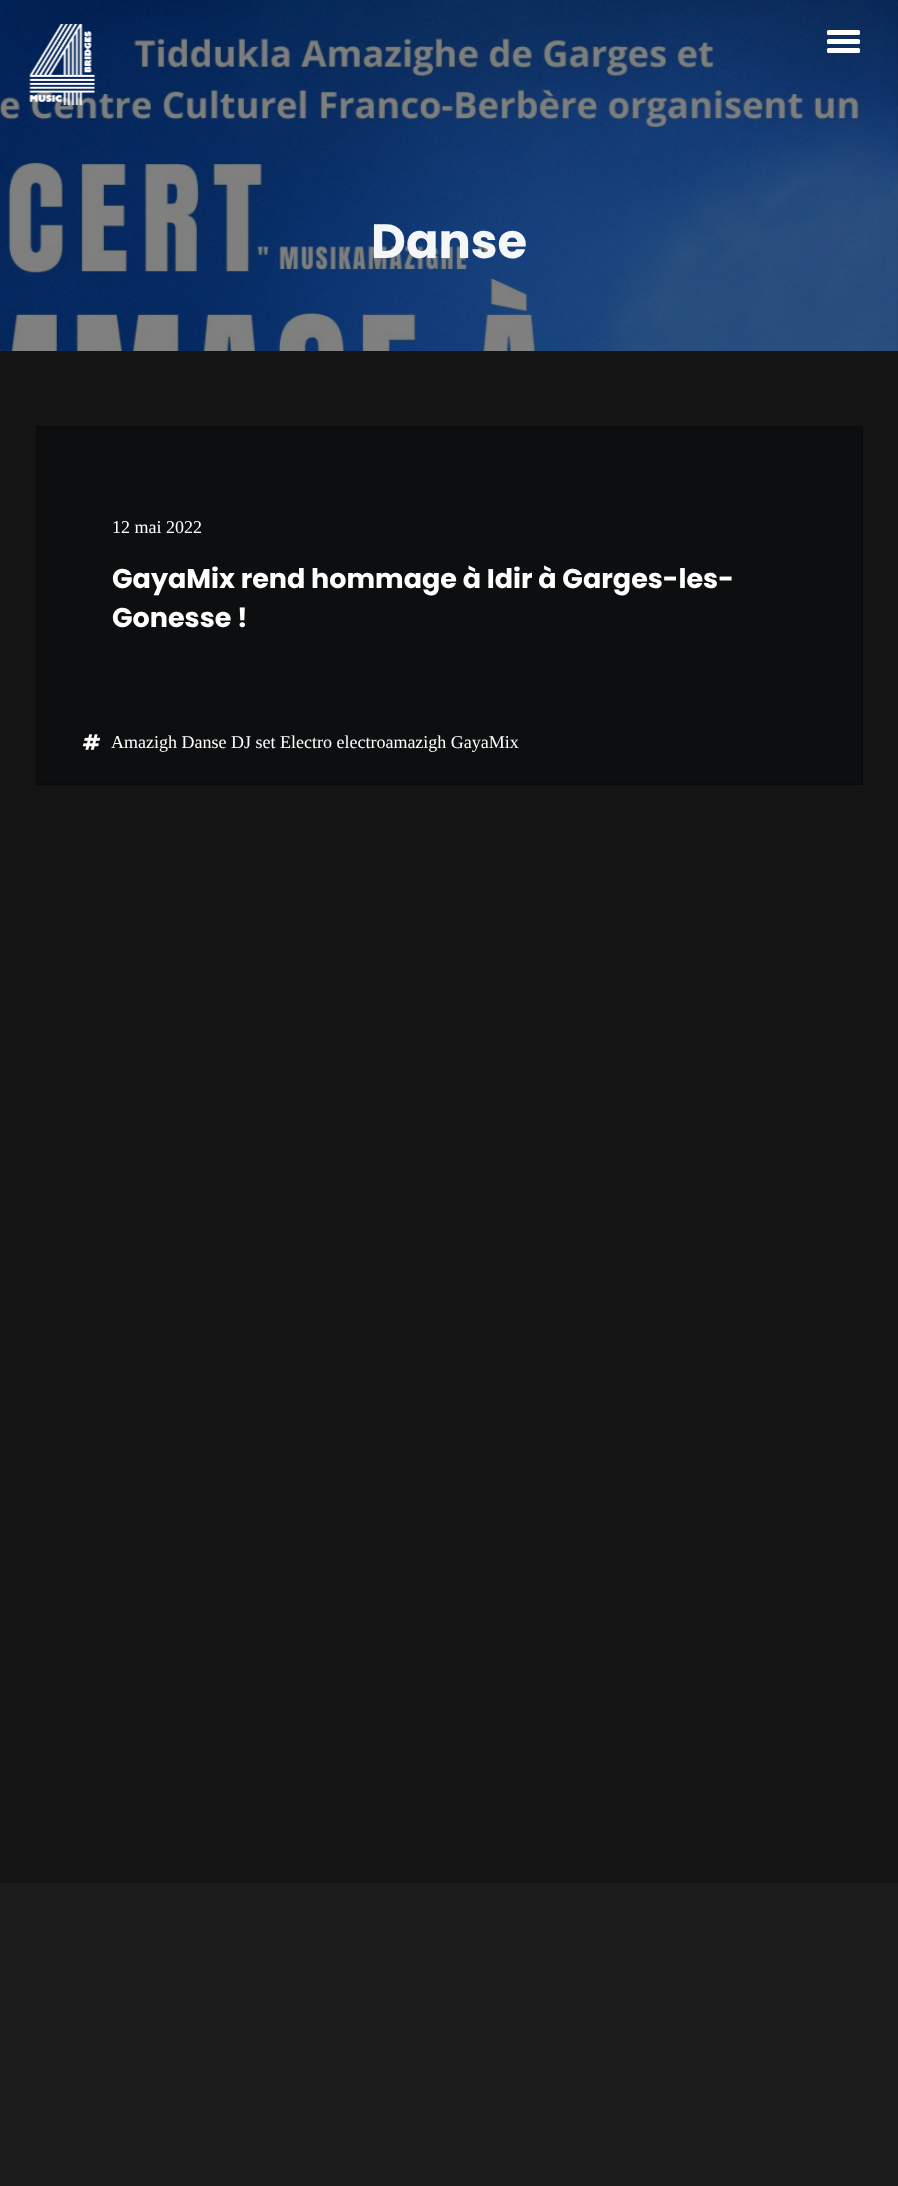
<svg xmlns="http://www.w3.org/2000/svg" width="898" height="2186">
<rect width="100%" height="100%" fill="#1b1b1b"/>
<image x="0" y="0" width="898" height="351" href="media/2.png"/>
<image x="29" y="24" width="66" height="81" href="media/1.png"/>
<rect x="827" y="30" width="33" height="5" rx="1.5" fill="#fff"/>
<rect x="827" y="39" width="33" height="5" rx="1.5" fill="#fff"/>
<rect x="827" y="48" width="33" height="5" rx="1.5" fill="#fff"/>
<text x="371" y="258" style="font-family:Poppins;font-size:48px;font-weight:bold;fill:#f4f6f8">Danse</text>
<rect y="351" width="898" height="1532" fill="#141414"/>
<rect x="37" y="427" width="825" height="357" fill="none" stroke="#0b0b0b" stroke-width="2"/>
<rect x="38" y="428" width="823" height="355" fill="#0d0e0f"/>
<text x="112" y="533" style="font-family:Liberation Serif;font-size:18px;fill:#fff">12 mai 2022</text>
<text x="112" y="588" style="font-family:Poppins;font-size:27px;font-weight:bold;fill:#fff">GayaMix rend hommage à Idir à Garges-les-</text>
<text x="112" y="627" style="font-family:Poppins;font-size:27px;font-weight:bold;fill:#fff">Gonesse !</text>
<image x="82" y="734" width="19" height="16" href="media/3.png"/>
<text x="111" y="748" style="font-family:Liberation Serif;font-size:18px;fill:#fff">Amazigh Danse DJ set Electro electroamazigh GayaMix</text>
</svg>
